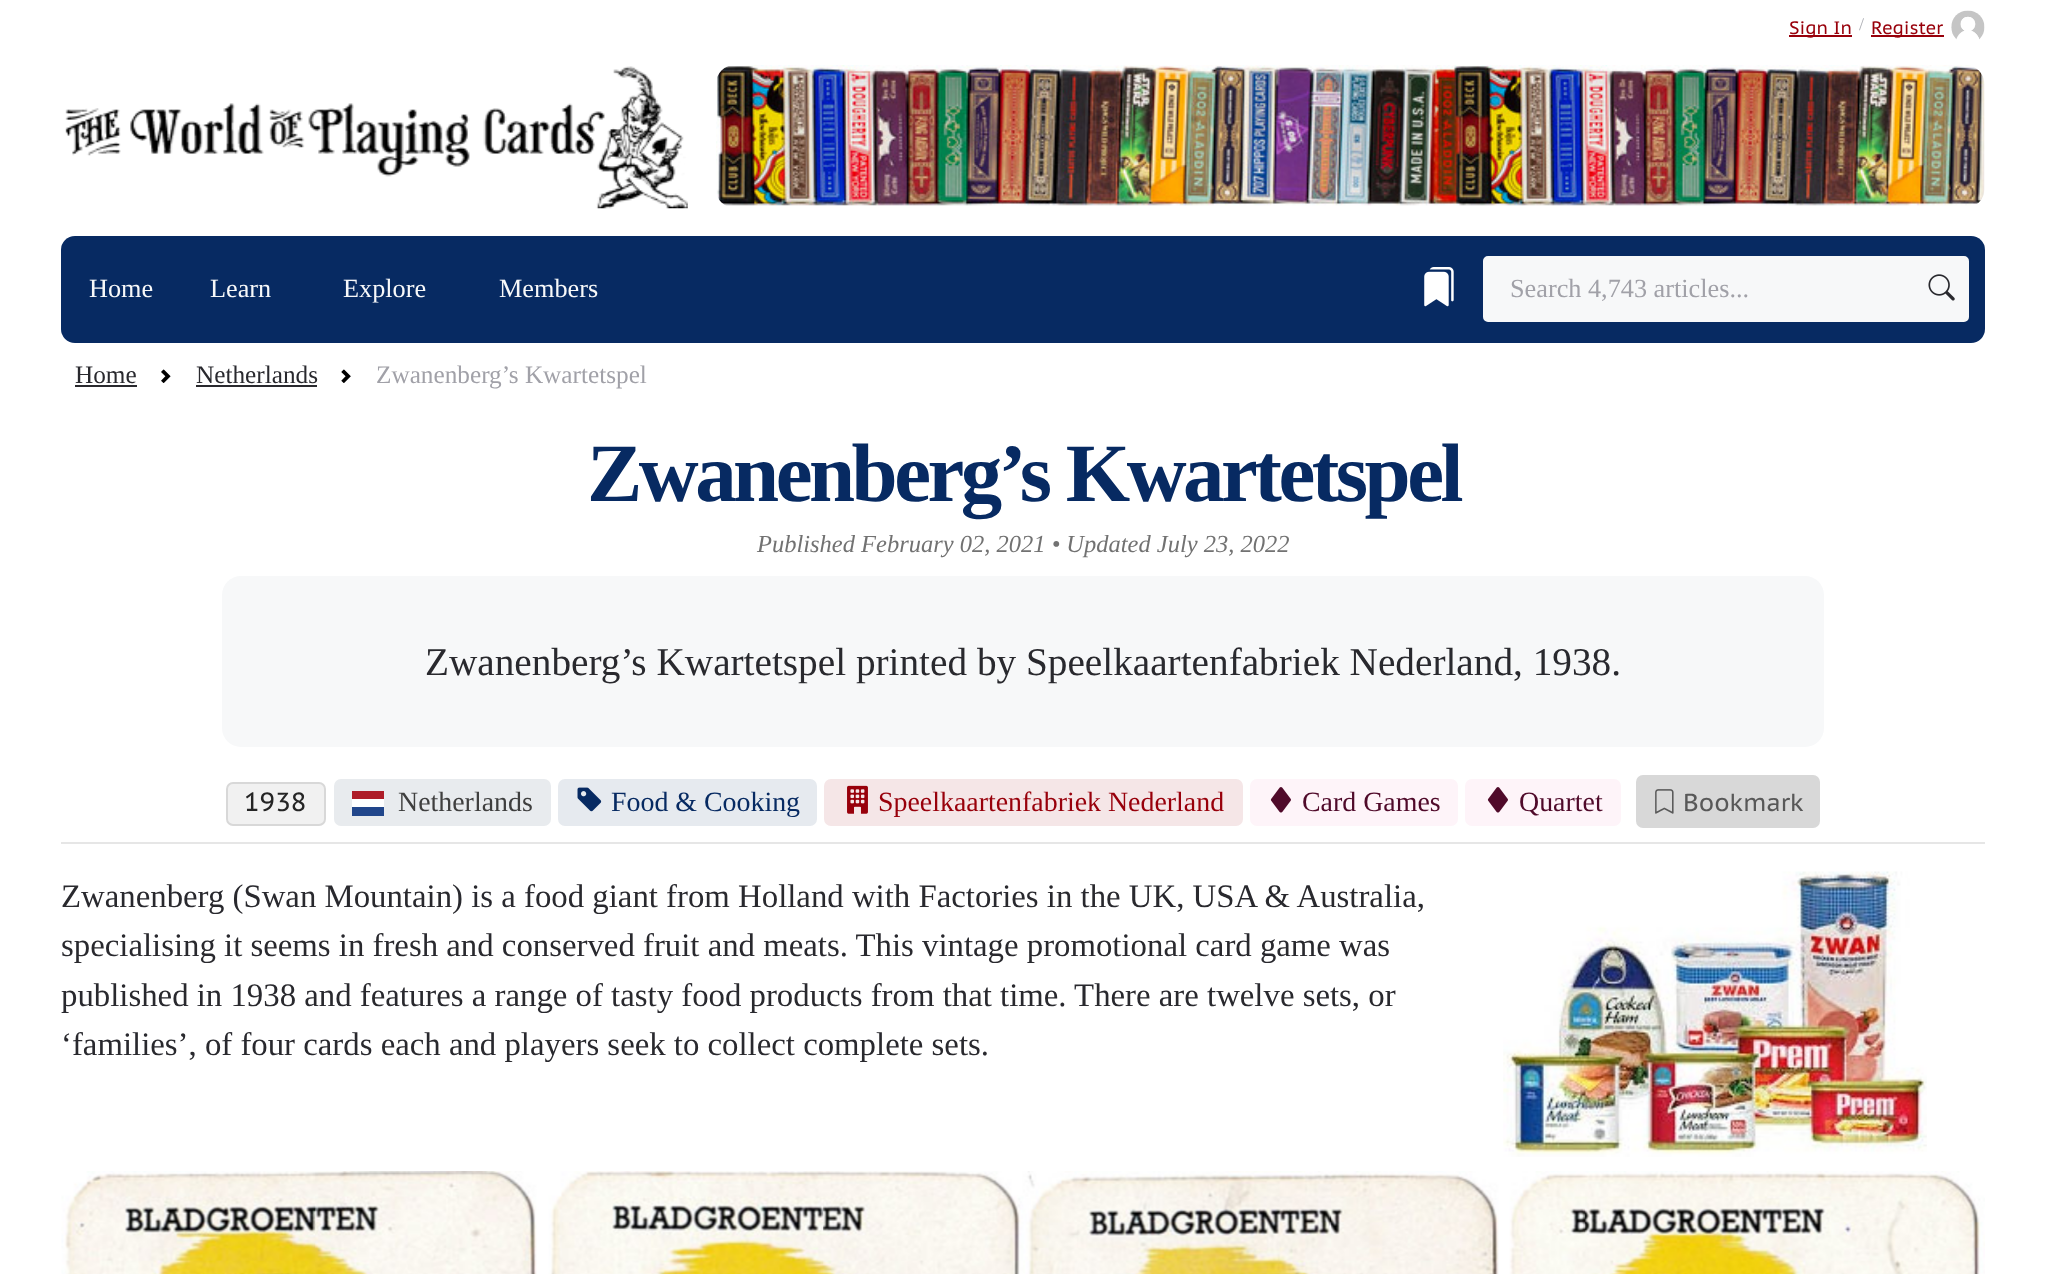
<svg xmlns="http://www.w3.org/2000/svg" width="2045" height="1274">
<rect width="100%" height="100%" fill="#fff"/>
<rect x="1789" y="35" width="63" height="2" fill="#98000b"/>
<text x="1789" y="34" style="font-family:PT Sans Caption;font-size:18px;fill:#98000b">Sign In</text>
<text x="1859" y="30" style="font-family:Liberation Serif;font-size:18px;fill:#acaeb4">/</text>
<rect x="1871" y="35" width="73" height="2" fill="#98000b"/>
<text x="1871" y="34" style="font-family:PT Sans Caption;font-size:18px;fill:#98000b">Register</text>
<image x="1951" y="10" width="34" height="30" href="media/1.png"/>
<image x="65" y="66" width="623" height="143" href="media/2.png"/>
<image x="716" y="65" width="1269" height="141" href="media/3.png"/>
<rect x="61" y="236" width="1924" height="107" rx="14" fill="#072a62"/>
<text x="89" y="297" style="font-family:Liberation Serif;font-size:26.25px;fill:#f7f8f9">Home</text>
<text x="210" y="297" style="font-family:Liberation Serif;font-size:26.25px;fill:#f7f8f9">Learn</text>
<text x="343" y="297" style="font-family:Liberation Serif;font-size:26.25px;fill:#f7f8f9">Explore</text>
<text x="499" y="297" style="font-family:Liberation Serif;font-size:26.25px;fill:#f7f8f9">Members</text>
<image x="1424" y="267" width="30" height="40" href="media/4.png"/>
<rect x="1482" y="255" width="488" height="68" rx="6" fill="#f7f8f9" stroke="#072a62" stroke-width="2"/>
<text x="1510" y="297" style="font-family:Liberation Serif;font-size:26.25px;fill:#a1a1a8">Search 4,743 articles...</text>
<image x="1928" y="274" width="27" height="27" href="media/5.png"/>
<text x="75" y="383" style="font-family:Liberation Serif;font-size:25.25px;fill:#29292e">Home</text>
<rect x="75" y="385" width="62" height="2" fill="#29292e"/>
<image x="161" y="369" width="10" height="14" href="media/6.png"/>
<text x="196" y="383" style="font-family:Liberation Serif;font-size:25.25px;fill:#29292e">Netherlands</text>
<rect x="196" y="385" width="121" height="2" fill="#29292e"/>
<image x="341" y="369" width="10" height="14" href="media/7.png"/>
<text x="376" y="383" style="font-family:Liberation Serif;font-size:25.25px;fill:#a1a1a8">Zwanenberg’s Kwartetspel</text>
<rect x="61" y="842" width="1924" height="2" fill="#e6e6e6"/>
<text x="587" y="501" style="font-family:Liberation Serif;font-size:82.9px;font-weight:bold;letter-spacing:-3.5px;fill:#072a62">Zwanenberg’s Kwartetspel</text>
<text x="757" y="552" style="font-family:Liberation Serif;font-size:24.5px;font-style:italic;fill:#727272">Published February 02, 2021 • Updated July 23, 2022</text>
<rect x="222" y="576" width="1602" height="171" rx="19" fill="#f7f8f9"/>
<text x="425" y="675" style="font-family:Liberation Serif;font-size:39.25px;fill:#29292e">Zwanenberg’s Kwartetspel printed by Speelkaartenfabriek Nederland, 1938.</text>
<rect x="227" y="783" width="98" height="42" rx="6" fill="#f1f1f1" stroke="#d8d8d8" stroke-width="2"/>
<text x="244" y="811" style="font-family:PT Sans Caption;font-size:26.25px;fill:#252525">1938</text>
<rect x="334" y="779" width="217" height="47" rx="7" fill="#e8ebee"/>
<rect x="352" y="807" width="32" height="9" fill="#21468b"/>
<rect x="352" y="799" width="32" height="8" fill="#fff"/>
<rect x="352" y="791" width="32" height="8" fill="#ae1c28"/>
<text x="398" y="811" style="font-family:Liberation Serif;font-size:27.9px;fill:#3f3f3f">Netherlands</text>
<rect x="558" y="779" width="259" height="47" rx="7" fill="#e6eaef"/>
<image x="577" y="787" width="25" height="25" href="media/8.png"/>
<text x="611" y="811" style="font-family:Liberation Serif;font-size:27.9px;fill:#072a62">Food &amp; Cooking</text>
<rect x="824" y="779" width="419" height="47" rx="7" fill="#f5e6e7"/>
<image x="847" y="785" width="21" height="29" href="media/9.png"/>
<text x="878" y="811" style="font-family:Liberation Serif;font-size:27.9px;fill:#98000b">Speelkaartenfabriek Nederland</text>
<rect x="1250" y="779" width="208" height="47" rx="7" fill="#fef4f9"/>
<image x="1270" y="787" width="21" height="26" href="media/10.png"/>
<text x="1302" y="811" style="font-family:Liberation Serif;font-size:27.9px;fill:#500a2a">Card Games</text>
<rect x="1465" y="779" width="156" height="47" rx="7" fill="#fef4f9"/>
<image x="1487" y="787" width="21" height="26" href="media/10.png"/>
<text x="1519" y="811" style="font-family:Liberation Serif;font-size:27.9px;fill:#500a2a">Quartet</text>
<rect x="1636" y="775" width="184" height="53" rx="7" fill="#d8d8d8"/>
<image x="1655" y="789" width="19" height="25" href="media/11.png"/>
<text x="1683" y="811" style="font-family:PT Sans Caption;font-size:24.5px;fill:#585858">Bookmark</text>
<text x="61" y="907" style="font-family:Liberation Serif;font-size:32.8px;fill:#29292e">Zwanenberg (Swan Mountain) is a food giant from Holland with Factories in the UK, USA &amp; Australia,</text>
<text x="61" y="956" style="font-family:Liberation Serif;font-size:32.8px;fill:#29292e">specialising it seems in fresh and conserved fruit and meats. This vintage promotional card game was</text>
<text x="61" y="1006" style="font-family:Liberation Serif;font-size:32.8px;fill:#29292e">published in 1938 and features a range of tasty food products from that time. There are twelve sets, or</text>
<text x="61" y="1055" style="font-family:Liberation Serif;font-size:32.8px;fill:#29292e">‘families’, of four cards each and players seek to collect complete sets.</text>
<image x="1503" y="871" width="424" height="286" href="media/12.png"/>
<image x="61" y="1171" width="1924" height="103" href="media/13.png"/>
</svg>
